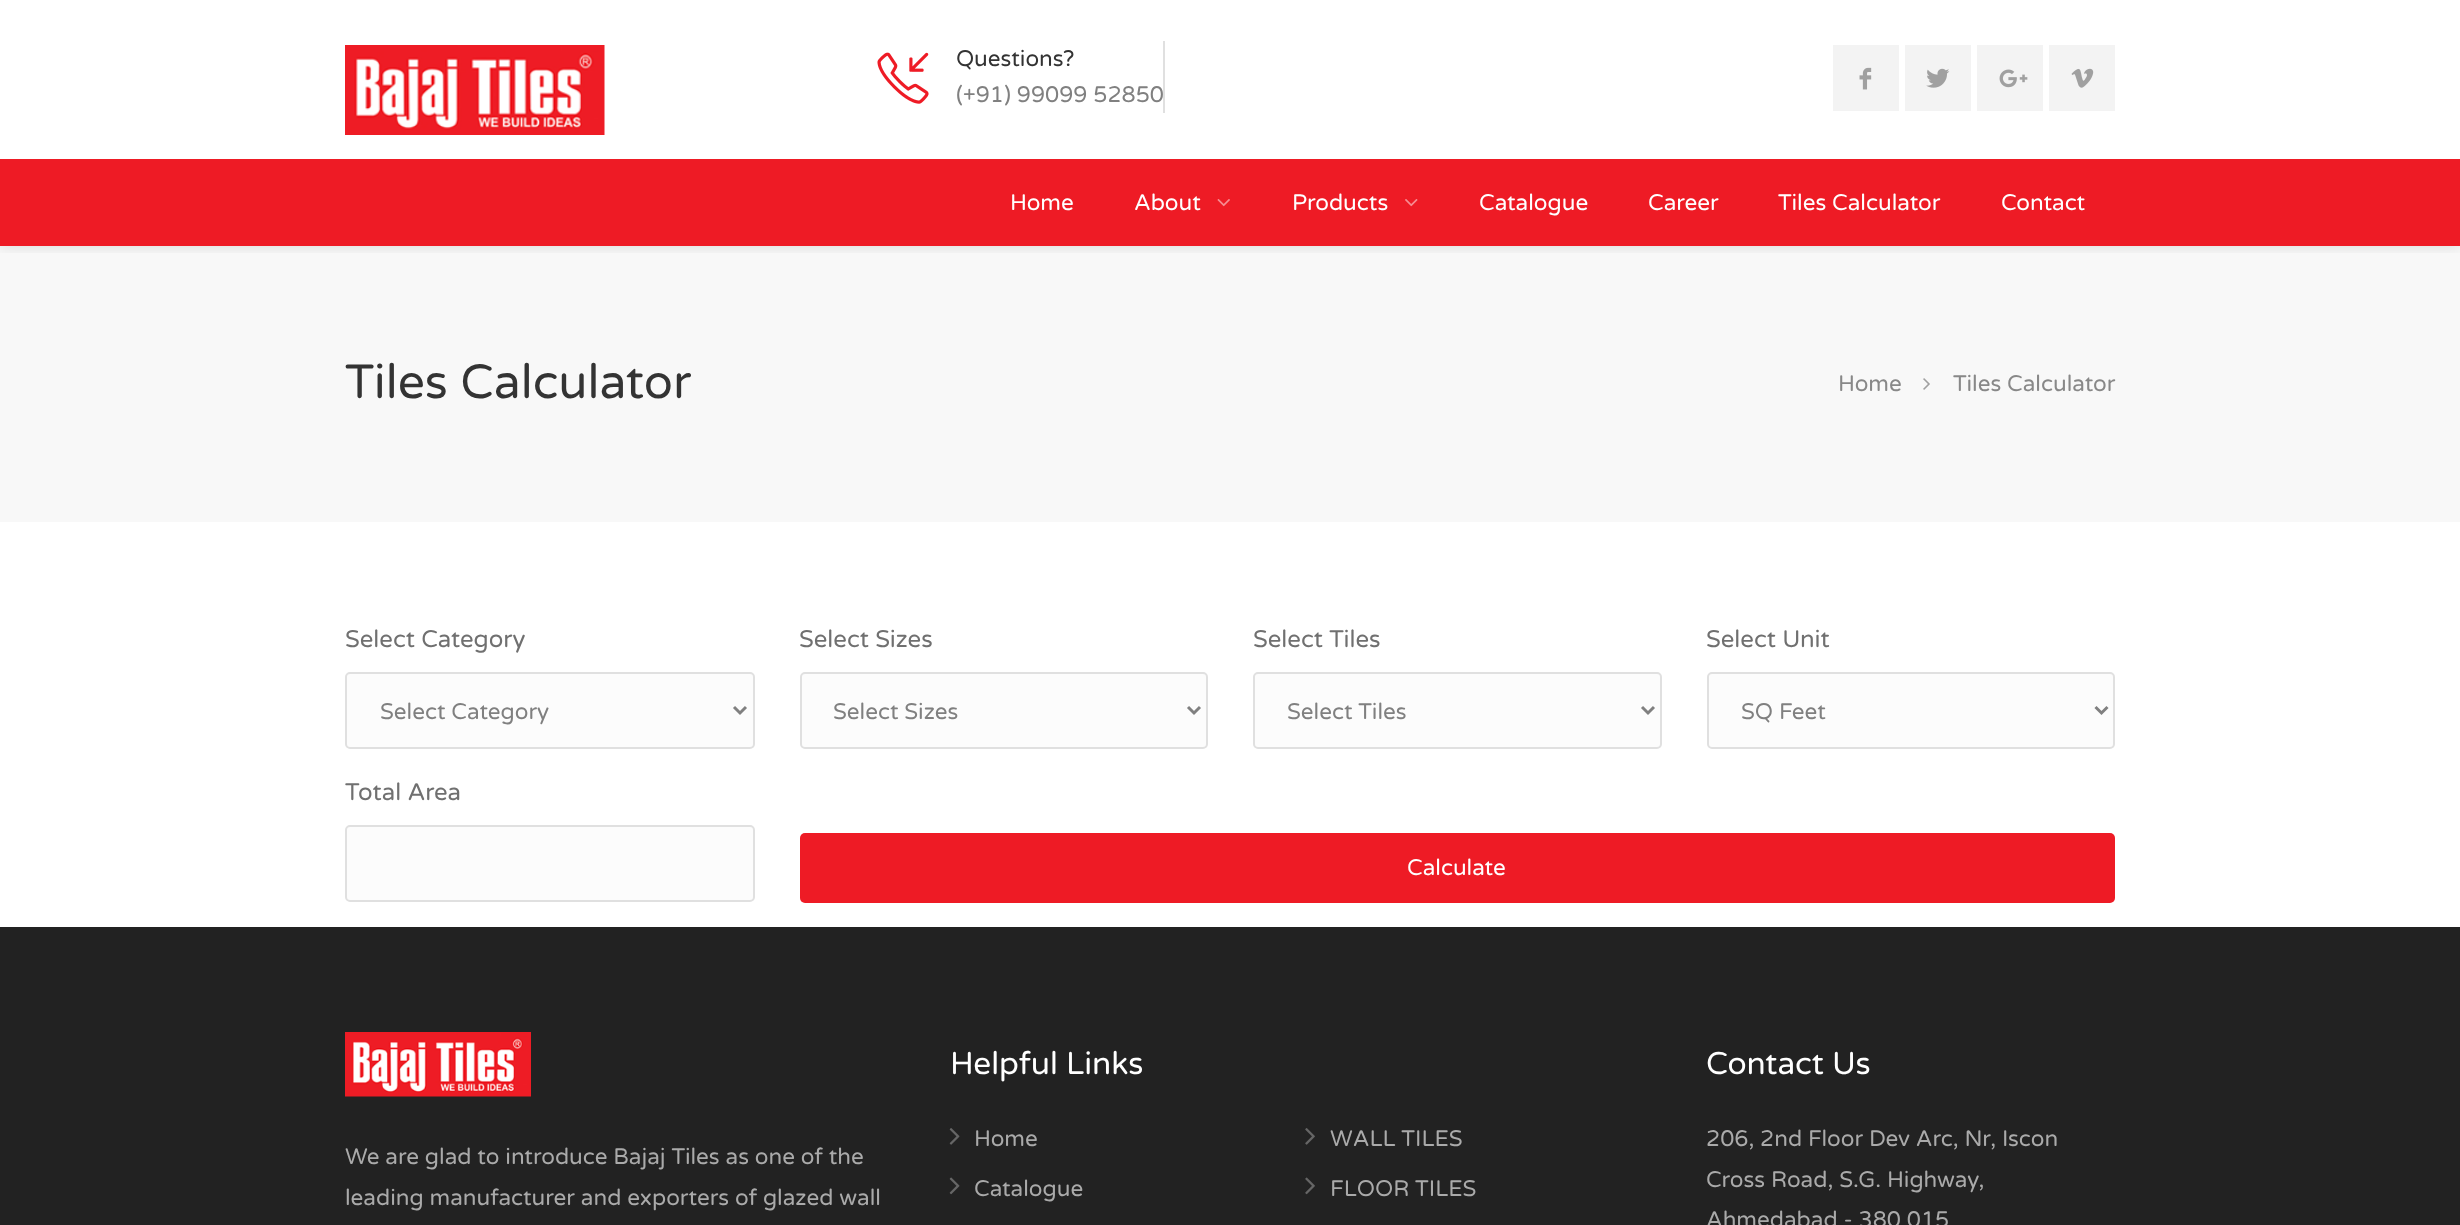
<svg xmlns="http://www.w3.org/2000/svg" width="2460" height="1225">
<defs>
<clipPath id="clip1"><rect x="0" y="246" width="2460" height="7"/></clipPath>
</defs>
<rect width="100%" height="100%" fill="#fff"/>
<rect y="246" width="2460" height="276" fill="#f8f8f8"/>
<g clip-path="url(#clip1)">
<rect width="2460" height="246" fill="#0000001f" filter="blur(7.5px)"/>
</g>
<image x="345" y="45" width="260" height="90" href="media/1.png"/>
<image x="877" y="52" width="52" height="52" href="media/2.png"/>
<text x="956" y="66" style="font-family:Varela Round;font-size:22.5px;fill:#333">Questions?</text>
<text x="956" y="102" style="font-family:Varela Round;font-size:22.5px;fill:#808080">(+91) 99099 52850</text>
<rect x="1163" y="41" width="2" height="72" fill="#e0e0e0"/>
<rect x="1833" y="45" width="66" height="66" fill="#f3f3f3"/>
<image x="1859" y="67" width="13" height="23" href="media/3.png"/>
<rect x="1905" y="45" width="66" height="66" fill="#f3f3f3"/>
<image x="1926" y="68" width="24" height="20" href="media/4.png"/>
<rect x="1977" y="45" width="66" height="66" fill="#f3f3f3"/>
<image x="1999" y="69" width="29" height="19" href="media/5.png"/>
<rect x="2049" y="45" width="66" height="66" fill="#f3f3f3"/>
<image x="2071" y="68" width="23" height="20" href="media/6.png"/>
<rect y="159" width="2460" height="87" fill="#ee1b25"/>
<text x="1010" y="210" style="font-family:Varela Round;font-size:22.5px;fill:#fff">Home</text>
<text x="1134" y="210" style="font-family:Varela Round;font-size:22.5px;fill:#fff">About</text>
<image x="1217" y="199" width="13" height="8" href="media/7.png"/>
<text x="1292" y="210" style="font-family:Varela Round;font-size:22.5px;fill:#fff">Products</text>
<image x="1405" y="199" width="13" height="8" href="media/8.png"/>
<text x="1479" y="210" style="font-family:Varela Round;font-size:22.5px;fill:#fff">Catalogue</text>
<text x="1648" y="210" style="font-family:Varela Round;font-size:22.5px;fill:#fff">Career</text>
<text x="1778" y="210" style="font-family:Varela Round;font-size:22.5px;fill:#fff">Tiles Calculator</text>
<text x="2001" y="210" style="font-family:Varela Round;font-size:22.5px;fill:#fff">Contact</text>
<text x="345" y="398" style="font-family:Varela Round;font-size:48px;fill:#333">Tiles Calculator</text>
<text x="1838" y="391" style="font-family:Varela Round;font-size:22.5px;fill:#888">Home</text>
<image x="1923" y="378" width="7" height="12" href="media/9.png"/>
<text x="1953" y="391" style="font-family:Varela Round;font-size:22.5px;fill:#888">Tiles Calculator</text>
<text x="345" y="647" style="font-family:Varela Round;font-size:24px;fill:#707070">Select Category</text>
<rect x="346" y="673" width="408" height="75" rx="4" fill="#fcfcfc" stroke="#e0e0e0" stroke-width="2"/>
<path d="M734 707l6 6l6-6" fill="none" stroke="#808080" stroke-width="3"/>
<text x="380" y="719" style="font-family:Varela Round;font-size:22.5px;fill:#808080">Select Category</text>
<text x="799" y="647" style="font-family:Varela Round;font-size:24px;fill:#707070">Select Sizes</text>
<rect x="801" y="673" width="406" height="75" rx="4" fill="#fcfcfc" stroke="#e0e0e0" stroke-width="2"/>
<path d="M1188 707l6 6l6-6" fill="none" stroke="#808080" stroke-width="3"/>
<text x="833" y="719" style="font-family:Varela Round;font-size:22.5px;fill:#808080">Select Sizes</text>
<text x="1253" y="647" style="font-family:Varela Round;font-size:24px;fill:#707070">Select Tiles</text>
<rect x="1254" y="673" width="407" height="75" rx="4" fill="#fcfcfc" stroke="#e0e0e0" stroke-width="2"/>
<path d="M1642 707l6 6l6-6" fill="none" stroke="#808080" stroke-width="3"/>
<text x="1287" y="719" style="font-family:Varela Round;font-size:22.5px;fill:#808080">Select Tiles</text>
<text x="1706" y="647" style="font-family:Varela Round;font-size:24px;fill:#707070">Select Unit</text>
<rect x="1708" y="673" width="406" height="75" rx="4" fill="#fcfcfc" stroke="#e0e0e0" stroke-width="2"/>
<path d="M2095.5 707l6 6l6-6" fill="none" stroke="#808080" stroke-width="3"/>
<text x="1741" y="719" style="font-family:Varela Round;font-size:22.5px;fill:#808080">SQ Feet</text>
<text x="345" y="800" style="font-family:Varela Round;font-size:24px;fill:#707070">Total Area</text>
<rect x="346" y="826" width="408" height="75" rx="4" fill="#fcfcfc" stroke="#e0e0e0" stroke-width="2"/>
<rect x="800" y="833" width="1315" height="70" rx="5" fill="#ee1b25"/>
<text x="1407" y="875" style="font-family:Varela Round;font-size:22.5px;fill:#fff">Calculate</text>
<rect y="927" width="2460" height="298" fill="#222"/>
<image x="345" y="1032" width="186" height="65" href="media/10.png"/>
<text x="345" y="1164" style="font-family:Varela Round;font-size:22.5px;fill:#aaa">We are glad to introduce Bajaj Tiles as one of the</text>
<text x="345" y="1205" style="font-family:Varela Round;font-size:22.5px;fill:#aaa">leading manufacturer and exporters of glazed wall</text>
<text x="950" y="1074" style="font-family:Varela Round;font-size:31.5px;fill:#fff">Helpful Links</text>
<image x="949" y="1128" width="11" height="17" href="media/11.png"/>
<text x="974" y="1146" style="font-family:Varela Round;font-size:22.5px;fill:#aaa">Home</text>
<image x="949" y="1177" width="11" height="18" href="media/12.png"/>
<text x="974" y="1196" style="font-family:Varela Round;font-size:22.5px;fill:#aaa">Catalogue</text>
<image x="1305" y="1128" width="10" height="17" href="media/13.png"/>
<text x="1330" y="1146" style="font-family:Varela Round;font-size:22.5px;fill:#aaa">WALL TILES</text>
<image x="1305" y="1177" width="10" height="18" href="media/14.png"/>
<text x="1330" y="1196" style="font-family:Varela Round;font-size:22.5px;fill:#aaa">FLOOR TILES</text>
<text x="1706" y="1074" style="font-family:Varela Round;font-size:31.5px;fill:#fff">Contact Us</text>
<text x="1706" y="1146" style="font-family:Varela Round;font-size:22.5px;fill:#aaa">206, 2nd Floor Dev Arc, Nr, Iscon</text>
<text x="1706" y="1187" style="font-family:Varela Round;font-size:22.5px;fill:#aaa">Cross Road, S.G. Highway,</text>
<text x="1706" y="1227" style="font-family:Varela Round;font-size:22.5px;fill:#aaa">Ahmedabad - 380 015</text>
</svg>
